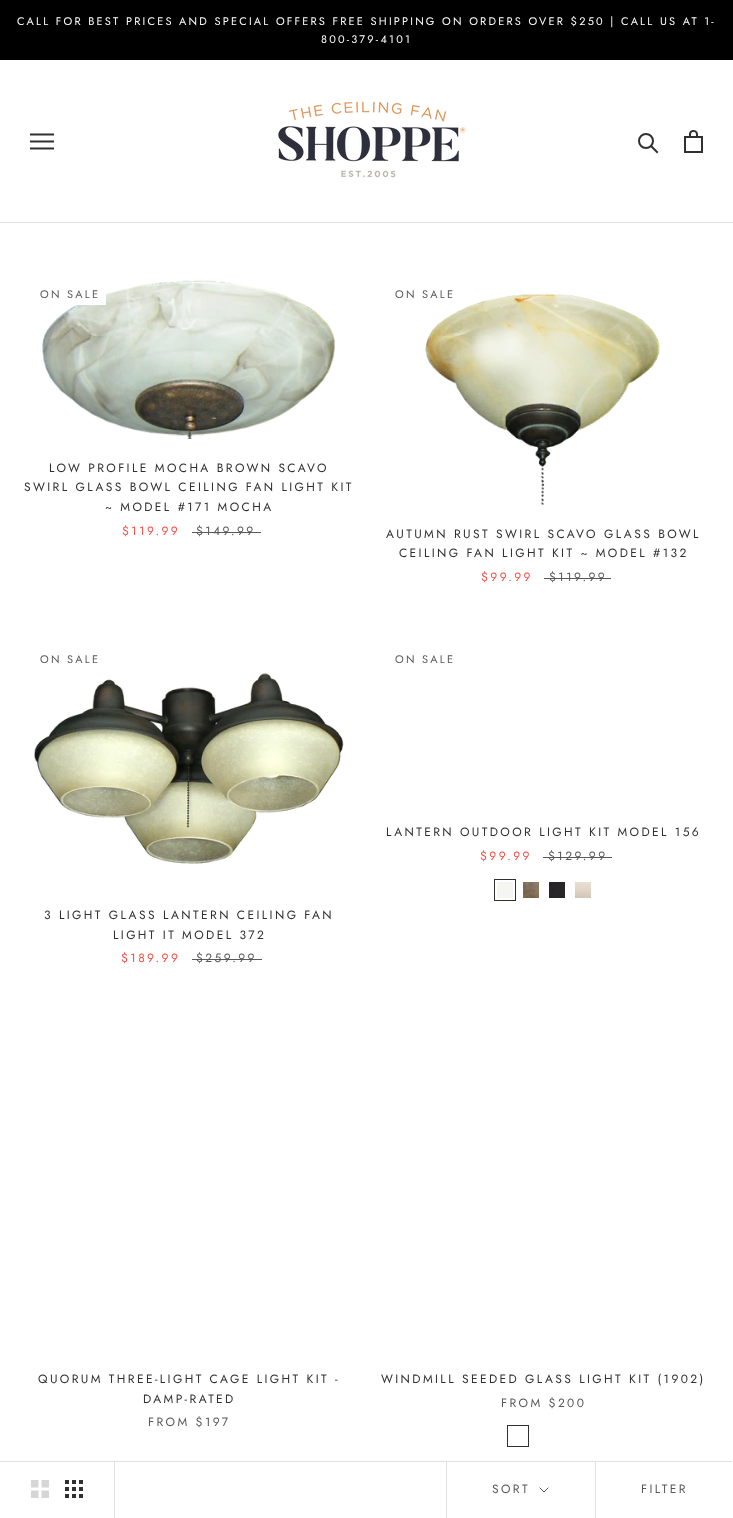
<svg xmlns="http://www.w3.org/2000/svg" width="733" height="1518">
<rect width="100%" height="100%" fill="#fff"/>
<rect width="733" height="60" fill="#000"/>
<text x="17" y="25" style="font-family:Jost;font-size:11px;letter-spacing:2.2px;fill:#fff">CALL FOR BEST PRICES AND SPECIAL OFFERS FREE SHIPPING ON ORDERS OVER $250 | CALL US AT 1-</text>
<text x="321" y="43" style="font-family:Jost;font-size:11px;letter-spacing:2.2px;fill:#fff">800-379-4101</text>
<rect y="222" width="733" height="1" fill="#e0e0e0"/>
<image x="30" y="133" width="24" height="17" href="media/1.png"/>
<image x="278" y="101" width="188" height="77" href="media/2.png"/>
<path d="M657 152l-5.5-5.5" fill="none" stroke="#303030" stroke-width="2" stroke-linecap="square"/>
<circle cx="646" cy="141" r="7" fill="none" stroke="#303030" stroke-width="2"/>
<image x="684" y="130" width="19" height="23" href="media/3.png"/>
<image x="42" y="280" width="294" height="159" href="media/4.png"/>
<rect x="76" y="293" width="30" height="12" fill="#fff"/>
<text x="40" y="298" style="font-family:Jost;font-size:11px;letter-spacing:2.2px;fill:#595959">ON SALE</text>
<text x="49" y="472" style="font-family:Jost;font-size:12px;letter-spacing:2.4px;fill:#303030">LOW PROFILE MOCHA BROWN SCAVO</text>
<text x="24" y="491" style="font-family:Jost;font-size:12px;letter-spacing:2.4px;fill:#303030">SWIRL GLASS BOWL CEILING FAN LIGHT KIT</text>
<text x="105" y="511" style="font-family:Jost;font-size:12px;letter-spacing:2.4px;fill:#303030">~ MODEL #171 MOCHA</text>
<text x="122" y="535" style="font-family:Jost;font-size:12px;letter-spacing:2.4px;fill:#f94c43">$119.99</text>
<text x="196" y="535" style="font-family:Jost;font-size:12px;letter-spacing:2.4px;fill:#595959">$149.99</text>
<rect x="192" y="532" width="69" height="1" fill="#595959"/>
<image x="425" y="294" width="235" height="211" href="media/5.png"/>
<text x="395" y="298" style="font-family:Jost;font-size:11px;letter-spacing:2.2px;fill:#595959">ON SALE</text>
<text x="386" y="538" style="font-family:Jost;font-size:12px;letter-spacing:2.4px;fill:#303030">AUTUMN RUST SWIRL SCAVO GLASS BOWL</text>
<text x="399" y="557" style="font-family:Jost;font-size:12px;letter-spacing:2.4px;fill:#303030">CEILING FAN LIGHT KIT ~ MODEL #132</text>
<text x="481" y="581" style="font-family:Jost;font-size:12px;letter-spacing:2.4px;fill:#f94c43">$99.99</text>
<text x="549" y="581" style="font-family:Jost;font-size:12px;letter-spacing:2.4px;fill:#595959">$119.99</text>
<rect x="544" y="578" width="67" height="1" fill="#595959"/>
<text x="40" y="663" style="font-family:Jost;font-size:11px;letter-spacing:2.2px;fill:#595959">ON SALE</text>
<image x="34" y="673" width="310" height="191" href="media/6.png"/>
<text x="44" y="919" style="font-family:Jost;font-size:12px;letter-spacing:2.4px;fill:#303030">3 LIGHT GLASS LANTERN CEILING FAN</text>
<text x="113" y="939" style="font-family:Jost;font-size:12px;letter-spacing:2.4px;fill:#303030">LIGHT IT MODEL 372</text>
<text x="121" y="962" style="font-family:Jost;font-size:12px;letter-spacing:2.4px;fill:#f94c43">$189.99</text>
<text x="196" y="962" style="font-family:Jost;font-size:12px;letter-spacing:2.4px;fill:#595959">$259.99</text>
<rect x="192" y="959" width="70" height="1" fill="#595959"/>
<text x="395" y="663" style="font-family:Jost;font-size:11px;letter-spacing:2.2px;fill:#595959">ON SALE</text>
<text x="386" y="836" style="font-family:Jost;font-size:12px;letter-spacing:2.4px;fill:#303030">LANTERN OUTDOOR LIGHT KIT MODEL 156</text>
<text x="480" y="860" style="font-family:Jost;font-size:12px;letter-spacing:2.4px;fill:#f94c43">$99.99</text>
<text x="548" y="860" style="font-family:Jost;font-size:12px;letter-spacing:2.4px;fill:#595959">$129.99</text>
<rect x="543" y="857" width="69" height="1" fill="#595959"/>
<rect x="497" y="882" width="16" height="16" fill="#f5f6f1"/>
<rect x="494.5" y="879.5" width="21" height="21" fill="none" stroke="#303030"/>
<image x="523" y="882" width="16" height="16" href="media/7.png"/>
<image x="549" y="882" width="16" height="16" href="media/8.png"/>
<image x="575" y="882" width="16" height="16" href="media/9.png"/>
<text x="38" y="1383" style="font-family:Jost;font-size:12px;letter-spacing:2.4px;fill:#303030">QUORUM THREE-LIGHT CAGE LIGHT KIT -</text>
<text x="143" y="1403" style="font-family:Jost;font-size:12px;letter-spacing:2.4px;fill:#303030">DAMP-RATED</text>
<text x="148" y="1426" style="font-family:Jost;font-size:12px;letter-spacing:2.4px;fill:#595959">FROM $197</text>
<text x="381" y="1383" style="font-family:Jost;font-size:12px;letter-spacing:2.4px;fill:#303030">WINDMILL SEEDED GLASS LIGHT KIT (1902)</text>
<text x="501" y="1407" style="font-family:Jost;font-size:12px;letter-spacing:2.4px;fill:#595959">FROM $200</text>
<rect x="507.5" y="1425.5" width="21" height="21" fill="none" stroke="#303030"/>
<path d="M-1 1461v56h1v-55h732v-1z" fill="#e0e0e0"/>
<rect x="114" y="1462" width="1" height="56" fill="#e0e0e0"/>
<image x="31" y="1480" width="18" height="18" href="media/10.png"/>
<image x="65" y="1480" width="18" height="18" href="media/11.png"/>
<rect x="446" y="1462" width="1" height="56" fill="#e0e0e0"/>
<text x="492" y="1493" style="font-family:Jost;font-size:12px;letter-spacing:2.4px;fill:#595959">SORT</text>
<path d="M548 1488l-4 4l-4-4" fill="none" stroke="#595959" stroke-linecap="square"/>
<rect x="595" y="1462" width="1" height="56" fill="#e0e0e0"/>
<text x="641" y="1493" style="font-family:Jost;font-size:12px;letter-spacing:2.4px;fill:#595959">FILTER</text>
</svg>
